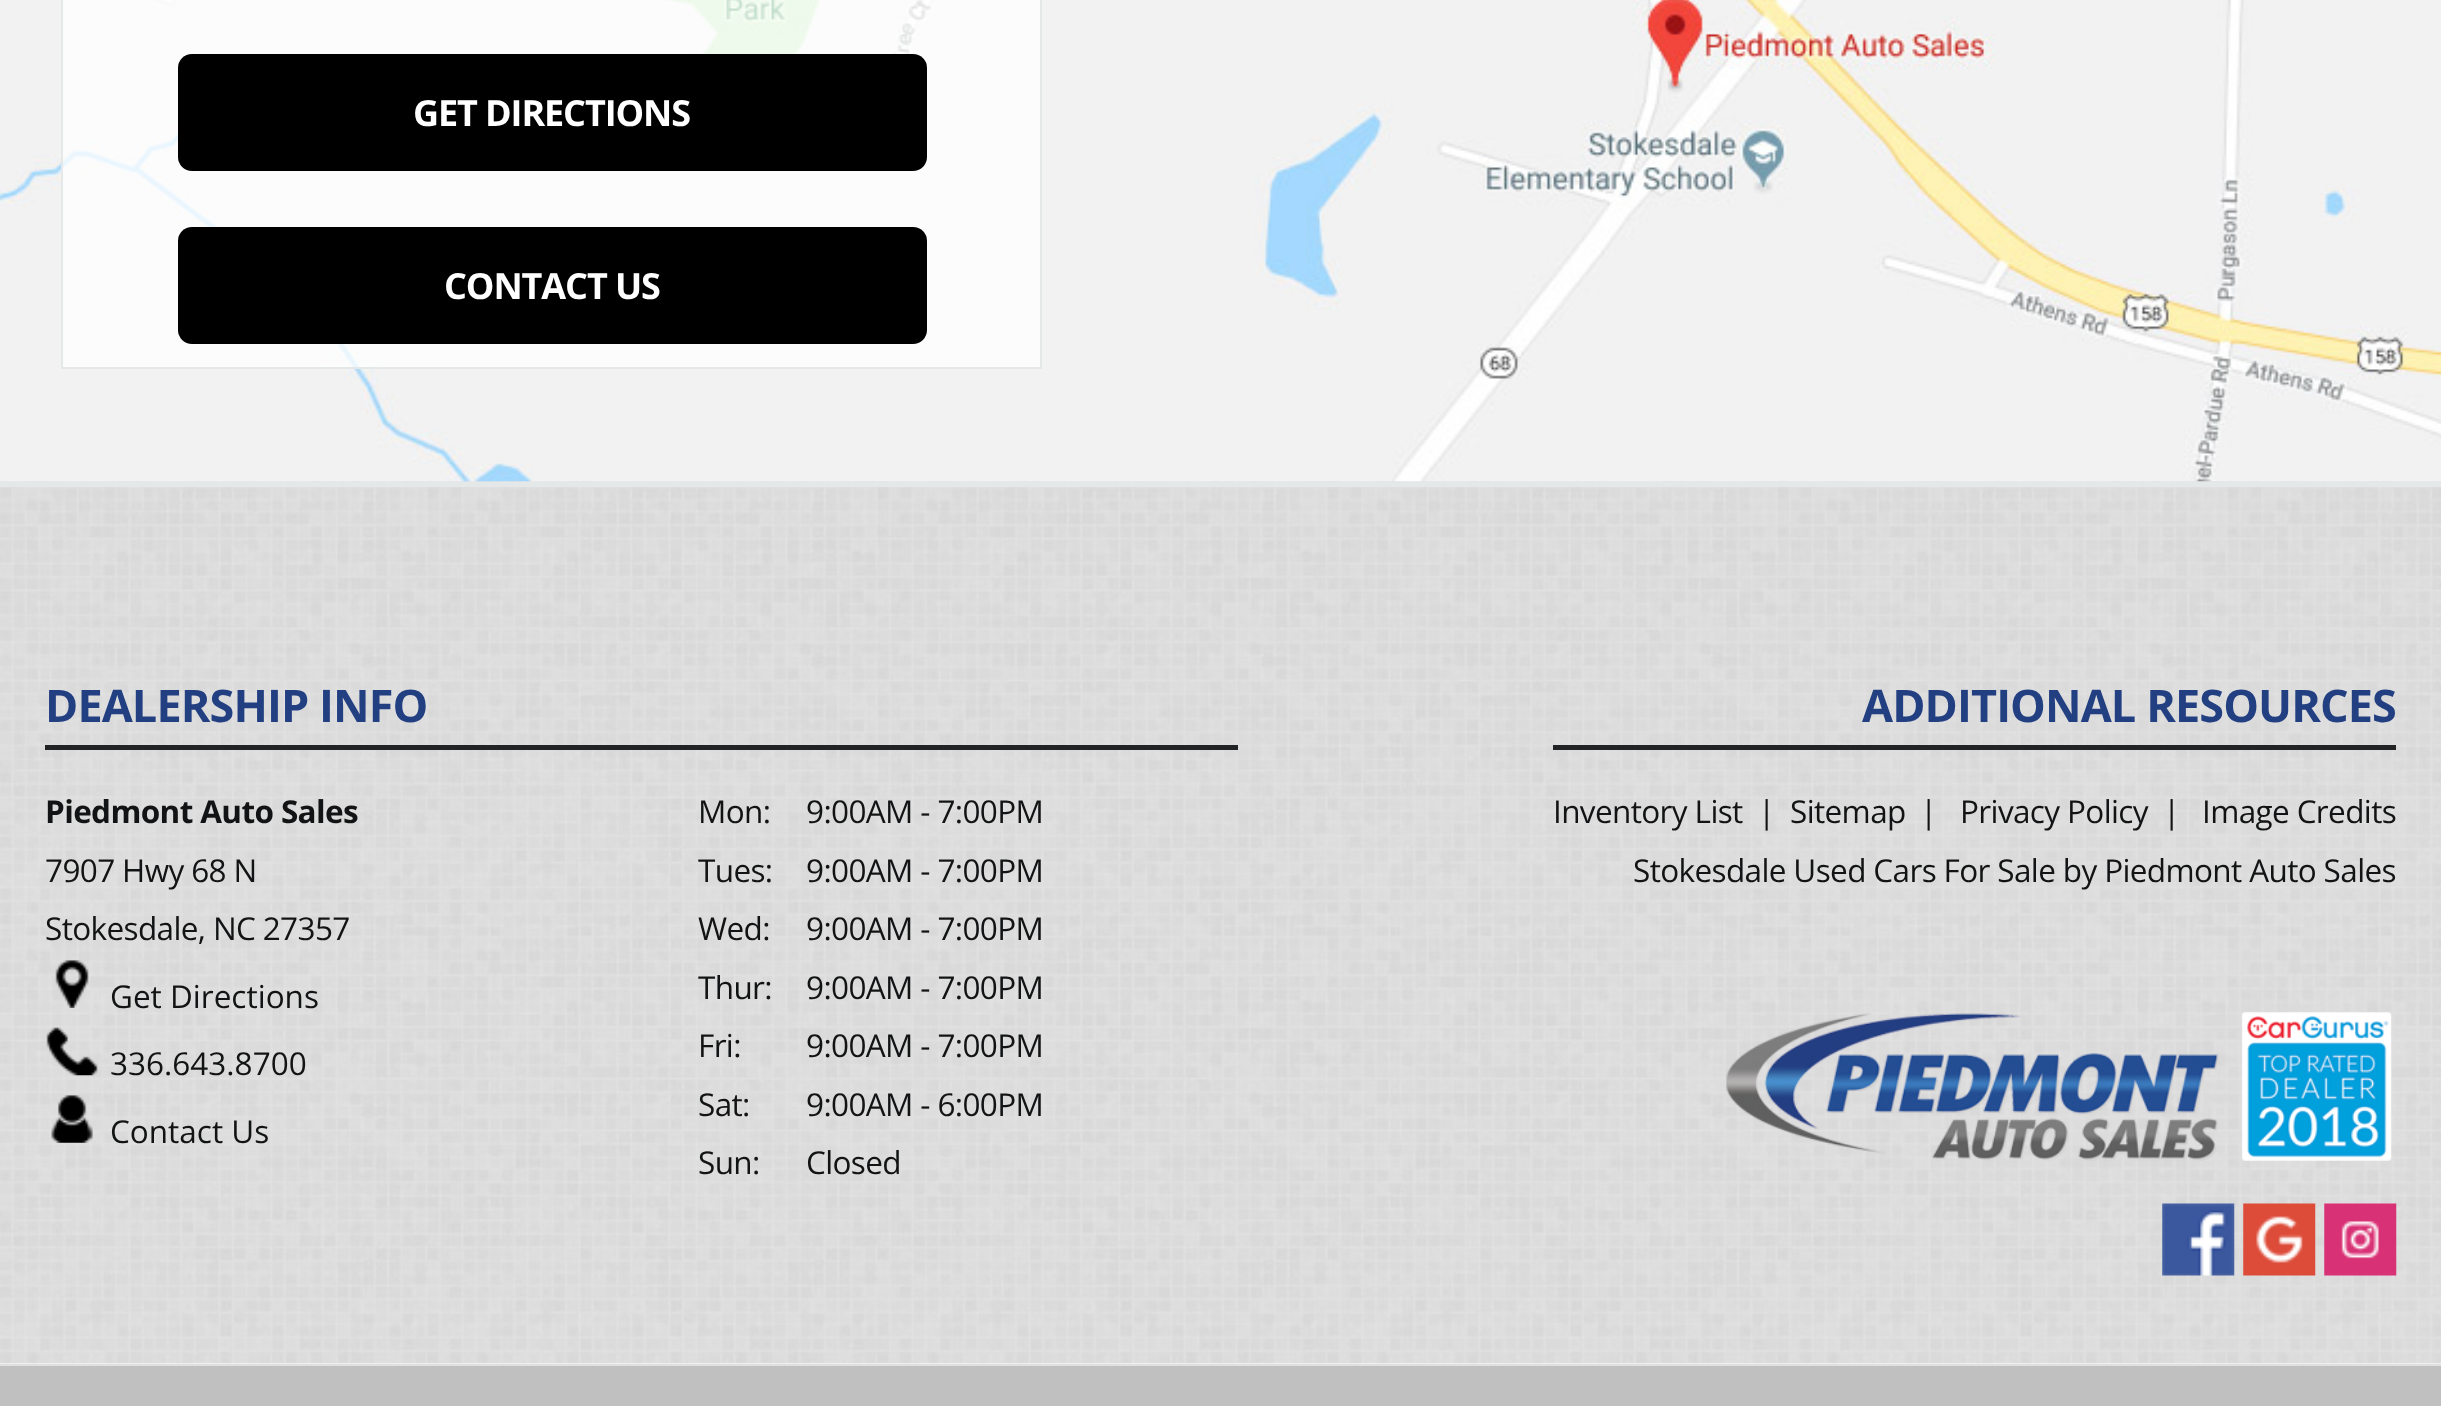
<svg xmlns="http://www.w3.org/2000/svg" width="2441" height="1406">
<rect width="100%" height="100%" fill="#fff"/>
<rect y="1363" width="2441" height="1" fill="#f4f4f4"/>
<image x="0" y="481" width="2441" height="883" href="media/2.png"/>
<image x="0" y="0" width="2441" height="482" href="media/1.png"/>
<rect x="62" y="-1" width="979" height="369" fill="#ffffffbf" stroke="#e4e8e8" stroke-width="2"/>
<rect x="178" y="54" width="749" height="117" rx="14" fill="#000"/>
<text x="413" y="126" style="font-family:Open Sans;font-size:36px;font-weight:bold;letter-spacing:-1.1px;fill:#fff">GET DIRECTIONS</text>
<rect x="178" y="227" width="749" height="117" rx="14" fill="#000"/>
<text x="444" y="299" style="font-family:Open Sans;font-size:36px;font-weight:bold;letter-spacing:-1.1px;fill:#fff">CONTACT US</text>
<rect y="482" width="2441" height="5" fill="#e4e8e8"/>
<rect x="45" y="745" width="1193" height="5" fill="#222324"/>
<text x="45" y="722" style="font-family:Open Sans;font-size:45px;font-weight:bold;letter-spacing:-0.9px;fill:#223f82">DEALERSHIP INFO</text>
<text x="45" y="823" style="font-family:Open Sans;font-size:31.5px;font-weight:bold;letter-spacing:-0.63px;fill:#121314">Piedmont Auto Sales</text>
<text x="45" y="882" style="font-family:Open Sans;font-size:31.5px;letter-spacing:-0.63px;fill:#121314">7907 Hwy 68 N</text>
<text x="45" y="940" style="font-family:Open Sans;font-size:31.5px;letter-spacing:-0.63px;fill:#121314">Stokesdale, NC 27357</text>
<image x="55" y="960" width="34" height="48" href="media/3.png"/>
<text x="110" y="1008" style="font-family:Open Sans;font-size:31.5px;fill:#121314">Get Directions</text>
<image x="46" y="1027" width="52" height="49" href="media/4.png"/>
<text x="110" y="1075" style="font-family:Open Sans;font-size:31.5px;fill:#121314">336.643.8700</text>
<image x="51" y="1095" width="42" height="48" href="media/5.png"/>
<text x="110" y="1143" style="font-family:Open Sans;font-size:31.5px;fill:#121314">Contact Us</text>
<text x="698" y="823" style="font-family:Open Sans;font-size:31.5px;letter-spacing:-0.63px;fill:#121314">Mon:</text>
<text x="698" y="882" style="font-family:Open Sans;font-size:31.5px;letter-spacing:-0.63px;fill:#121314">Tues:</text>
<text x="698" y="940" style="font-family:Open Sans;font-size:31.5px;letter-spacing:-0.63px;fill:#121314">Wed:</text>
<text x="698" y="999" style="font-family:Open Sans;font-size:31.5px;letter-spacing:-0.63px;fill:#121314">Thur:</text>
<text x="698" y="1057" style="font-family:Open Sans;font-size:31.5px;letter-spacing:-0.63px;fill:#121314">Fri:</text>
<text x="698" y="1116" style="font-family:Open Sans;font-size:31.5px;letter-spacing:-0.63px;fill:#121314">Sat:</text>
<text x="698" y="1174" style="font-family:Open Sans;font-size:31.5px;letter-spacing:-0.63px;fill:#121314">Sun:</text>
<text x="806" y="823" style="font-family:Open Sans;font-size:31.5px;letter-spacing:-0.63px;fill:#121314">9:00AM - 7:00PM</text>
<text x="806" y="882" style="font-family:Open Sans;font-size:31.5px;letter-spacing:-0.63px;fill:#121314">9:00AM - 7:00PM</text>
<text x="806" y="940" style="font-family:Open Sans;font-size:31.5px;letter-spacing:-0.63px;fill:#121314">9:00AM - 7:00PM</text>
<text x="806" y="999" style="font-family:Open Sans;font-size:31.5px;letter-spacing:-0.63px;fill:#121314">9:00AM - 7:00PM</text>
<text x="806" y="1057" style="font-family:Open Sans;font-size:31.5px;letter-spacing:-0.63px;fill:#121314">9:00AM - 7:00PM</text>
<text x="806" y="1116" style="font-family:Open Sans;font-size:31.5px;letter-spacing:-0.63px;fill:#121314">9:00AM - 6:00PM</text>
<text x="806" y="1174" style="font-family:Open Sans;font-size:31.5px;letter-spacing:-0.63px;fill:#121314">Closed</text>
<rect x="1553" y="745" width="843" height="5" fill="#222324"/>
<text x="1862" y="722" style="font-family:Open Sans;font-size:45px;font-weight:bold;letter-spacing:-0.9px;fill:#223f82">ADDITIONAL RESOURCES</text>
<text x="1553" y="823" style="font-family:Open Sans;font-size:31.5px;letter-spacing:-0.63px;fill:#121314">Inventory List</text>
<text x="1758" y="823" style="font-family:Open Sans;font-size:31.5px;letter-spacing:-0.63px;fill:#121314">|</text>
<text x="1790" y="823" style="font-family:Open Sans;font-size:31.5px;letter-spacing:-0.63px;fill:#121314">Sitemap</text>
<text x="1920" y="823" style="font-family:Open Sans;font-size:31.5px;letter-spacing:-0.63px;fill:#121314">|</text>
<text x="1960" y="823" style="font-family:Open Sans;font-size:31.5px;letter-spacing:-0.63px;fill:#121314">Privacy Policy</text>
<text x="2163" y="823" style="font-family:Open Sans;font-size:31.5px;letter-spacing:-0.63px;fill:#121314">|</text>
<text x="2202" y="823" style="font-family:Open Sans;font-size:31.5px;letter-spacing:-0.63px;fill:#121314">Image Credits</text>
<text x="1633" y="882" style="font-family:Open Sans;font-size:31.5px;letter-spacing:-0.63px;fill:#121314">Stokesdale Used Cars For Sale by Piedmont Auto Sales</text>
<image x="1726" y="1012" width="666" height="149" href="media/6.png"/>
<image x="2162" y="1203" width="73" height="73" href="media/7.png"/>
<image x="2243" y="1203" width="73" height="73" href="media/8.png"/>
<image x="2324" y="1203" width="73" height="73" href="media/9.png"/>
<rect y="1366" width="2441" height="40" fill="#c0c0c0"/>
<rect y="1364" width="2441" height="2" fill="#e0e0e0"/>
</svg>
